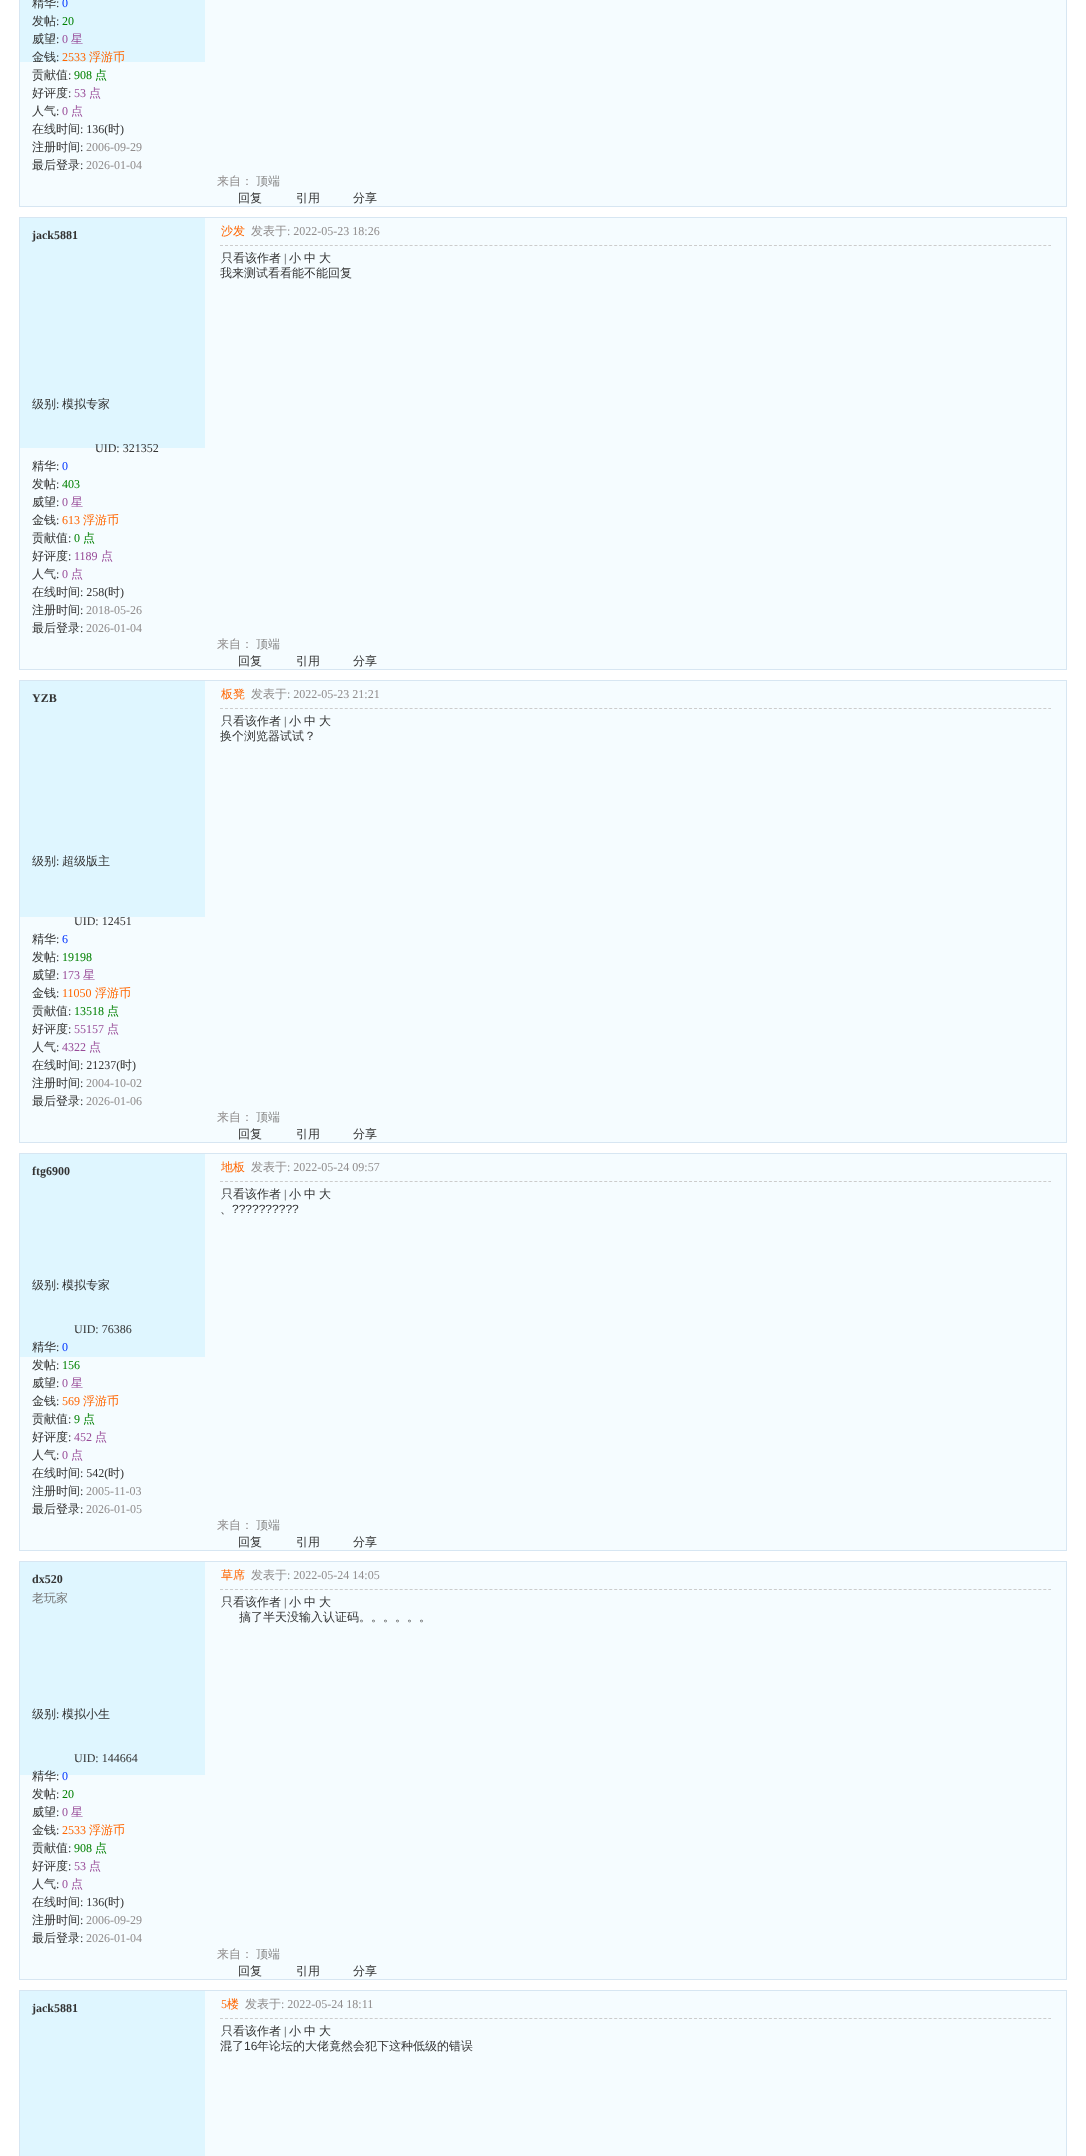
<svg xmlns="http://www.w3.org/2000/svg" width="1086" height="2156">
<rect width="100%" height="100%" fill="#fff"/>
<rect x="1066" width="1" height="207" fill="#d7e6f2"/>
<rect x="19" y="206" width="1048" height="1" fill="#d7e6f2"/>
<rect x="19" width="1" height="207" fill="#d7e6f2"/>
<rect x="20" width="185" height="62" fill="#dff6ff"/>
<text x="32" y="7" style="font-family:WenQuanYi Zen Hei;font-size:12px;font-weight:500;fill:#333">精华</text>
<text x="56" y="7" style="font-family:Liberation Serif;font-size:12px;fill:#333">:</text>
<text x="62" y="7" style="font-family:Liberation Serif;font-size:12px;fill:#03f">0</text>
<text x="32" y="25" style="font-family:WenQuanYi Zen Hei;font-size:12px;font-weight:500;fill:#333">发帖</text>
<text x="56" y="25" style="font-family:Liberation Serif;font-size:12px;fill:#333">:</text>
<text x="62" y="25" style="font-family:Liberation Serif;font-size:12px;fill:#008000">20</text>
<text x="32" y="43" style="font-family:WenQuanYi Zen Hei;font-size:12px;font-weight:500;fill:#333">威望</text>
<text x="56" y="43" style="font-family:Liberation Serif;font-size:12px;fill:#333">:</text>
<text x="62" y="43" style="font-family:Liberation Serif;font-size:12px;fill:#984b98">0</text>
<text x="71" y="43" style="font-family:WenQuanYi Zen Hei;font-size:12px;font-weight:500;fill:#984b98">星</text>
<rect x="20" y="62" width="1046" height="144" fill="#f5fcff"/>
<text x="32" y="61" style="font-family:WenQuanYi Zen Hei;font-size:12px;font-weight:500;fill:#333">金钱</text>
<text x="56" y="61" style="font-family:Liberation Serif;font-size:12px;fill:#333">:</text>
<text x="62" y="61" style="font-family:Liberation Serif;font-size:12px;fill:#f60">2533</text>
<text x="89" y="61" style="font-family:WenQuanYi Zen Hei;font-size:12px;font-weight:500;fill:#f60">浮游币</text>
<text x="32" y="79" style="font-family:WenQuanYi Zen Hei;font-size:12px;font-weight:500;fill:#333">贡献值</text>
<text x="68" y="79" style="font-family:Liberation Serif;font-size:12px;fill:#333">:</text>
<text x="74" y="79" style="font-family:Liberation Serif;font-size:12px;fill:#008000">908</text>
<text x="95" y="79" style="font-family:WenQuanYi Zen Hei;font-size:12px;font-weight:500;fill:#008000">点</text>
<text x="32" y="97" style="font-family:WenQuanYi Zen Hei;font-size:12px;font-weight:500;fill:#333">好评度</text>
<text x="68" y="97" style="font-family:Liberation Serif;font-size:12px;fill:#333">:</text>
<text x="74" y="97" style="font-family:Liberation Serif;font-size:12px;fill:#984b98">53</text>
<text x="89" y="97" style="font-family:WenQuanYi Zen Hei;font-size:12px;font-weight:500;fill:#984b98">点</text>
<text x="32" y="115" style="font-family:WenQuanYi Zen Hei;font-size:12px;font-weight:500;fill:#333">人气</text>
<text x="56" y="115" style="font-family:Liberation Serif;font-size:12px;fill:#333">:</text>
<text x="62" y="115" style="font-family:Liberation Serif;font-size:12px;fill:#984b98">0</text>
<text x="71" y="115" style="font-family:WenQuanYi Zen Hei;font-size:12px;font-weight:500;fill:#984b98">点</text>
<text x="32" y="133" style="font-family:WenQuanYi Zen Hei;font-size:12px;font-weight:500;fill:#333">在线时间</text>
<text x="80" y="133" style="font-family:Liberation Serif;font-size:12px;fill:#333">: 136(</text>
<text x="108" y="133" style="font-family:WenQuanYi Zen Hei;font-size:12px;font-weight:500;fill:#333">时</text>
<text x="120" y="133" style="font-family:Liberation Serif;font-size:12px;fill:#333">)</text>
<text x="32" y="151" style="font-family:WenQuanYi Zen Hei;font-size:12px;font-weight:500;fill:#333">注册时间</text>
<text x="80" y="151" style="font-family:Liberation Serif;font-size:12px;fill:#333">:</text>
<text x="86" y="151" style="font-family:Liberation Serif;font-size:12px;fill:#908c8c">2006-09-29</text>
<text x="32" y="169" style="font-family:WenQuanYi Zen Hei;font-size:12px;font-weight:500;fill:#333">最后登录</text>
<text x="80" y="169" style="font-family:Liberation Serif;font-size:12px;fill:#333">:</text>
<text x="86" y="169" style="font-family:Liberation Serif;font-size:12px;fill:#908c8c">2026-01-04</text>
<rect x="205" width="861" height="62" fill="#f5fcff"/>
<text x="217" y="185" style="font-family:WenQuanYi Zen Hei;font-size:12px;font-weight:500;fill:#908c8c">来自：</text>
<text x="256" y="185" style="font-family:WenQuanYi Zen Hei;font-size:12px;font-weight:500;fill:#888">顶端</text>
<text x="238" y="202" style="font-family:WenQuanYi Zen Hei;font-size:12px;font-weight:500;fill:#333">回复</text>
<text x="296" y="202" style="font-family:WenQuanYi Zen Hei;font-size:12px;font-weight:500;fill:#333">引用</text>
<text x="353" y="202" style="font-family:WenQuanYi Zen Hei;font-size:12px;font-weight:500;fill:#333">分享</text>
<rect x="19.5" y="217.5" width="1047" height="452" fill="none" stroke="#d7e6f2"/>
<rect x="20" y="218" width="185" height="230" fill="#dff6ff"/>
<text x="32" y="239" style="font-family:Liberation Serif;font-size:12px;font-weight:bold;fill:#333">jack5881</text>
<text x="32" y="408" style="font-family:WenQuanYi Zen Hei;font-size:12px;font-weight:500;fill:#333">级别</text>
<text x="56" y="408" style="font-family:Liberation Serif;font-size:12px;fill:#333">:</text>
<text x="62" y="408" style="font-family:WenQuanYi Zen Hei;font-size:12px;font-weight:500;fill:#333">模拟专家</text>
<rect x="20" y="448" width="1046" height="221" fill="#f5fcff"/>
<text x="95" y="452" style="font-family:Liberation Serif;font-size:12px;fill:#333">UID: 321352</text>
<text x="32" y="470" style="font-family:WenQuanYi Zen Hei;font-size:12px;font-weight:500;fill:#333">精华</text>
<text x="56" y="470" style="font-family:Liberation Serif;font-size:12px;fill:#333">:</text>
<text x="62" y="470" style="font-family:Liberation Serif;font-size:12px;fill:#03f">0</text>
<text x="32" y="488" style="font-family:WenQuanYi Zen Hei;font-size:12px;font-weight:500;fill:#333">发帖</text>
<text x="56" y="488" style="font-family:Liberation Serif;font-size:12px;fill:#333">:</text>
<text x="62" y="488" style="font-family:Liberation Serif;font-size:12px;fill:#008000">403</text>
<text x="32" y="506" style="font-family:WenQuanYi Zen Hei;font-size:12px;font-weight:500;fill:#333">威望</text>
<text x="56" y="506" style="font-family:Liberation Serif;font-size:12px;fill:#333">:</text>
<text x="62" y="506" style="font-family:Liberation Serif;font-size:12px;fill:#984b98">0</text>
<text x="71" y="506" style="font-family:WenQuanYi Zen Hei;font-size:12px;font-weight:500;fill:#984b98">星</text>
<text x="32" y="524" style="font-family:WenQuanYi Zen Hei;font-size:12px;font-weight:500;fill:#333">金钱</text>
<text x="56" y="524" style="font-family:Liberation Serif;font-size:12px;fill:#333">:</text>
<text x="62" y="524" style="font-family:Liberation Serif;font-size:12px;fill:#f60">613</text>
<text x="83" y="524" style="font-family:WenQuanYi Zen Hei;font-size:12px;font-weight:500;fill:#f60">浮游币</text>
<text x="32" y="542" style="font-family:WenQuanYi Zen Hei;font-size:12px;font-weight:500;fill:#333">贡献值</text>
<text x="68" y="542" style="font-family:Liberation Serif;font-size:12px;fill:#333">:</text>
<text x="74" y="542" style="font-family:Liberation Serif;font-size:12px;fill:#008000">0</text>
<text x="83" y="542" style="font-family:WenQuanYi Zen Hei;font-size:12px;font-weight:500;fill:#008000">点</text>
<text x="32" y="560" style="font-family:WenQuanYi Zen Hei;font-size:12px;font-weight:500;fill:#333">好评度</text>
<text x="68" y="560" style="font-family:Liberation Serif;font-size:12px;fill:#333">:</text>
<text x="74" y="560" style="font-family:Liberation Serif;font-size:12px;fill:#984b98">1189</text>
<text x="101" y="560" style="font-family:WenQuanYi Zen Hei;font-size:12px;font-weight:500;fill:#984b98">点</text>
<text x="32" y="578" style="font-family:WenQuanYi Zen Hei;font-size:12px;font-weight:500;fill:#333">人气</text>
<text x="56" y="578" style="font-family:Liberation Serif;font-size:12px;fill:#333">:</text>
<text x="62" y="578" style="font-family:Liberation Serif;font-size:12px;fill:#984b98">0</text>
<text x="71" y="578" style="font-family:WenQuanYi Zen Hei;font-size:12px;font-weight:500;fill:#984b98">点</text>
<text x="32" y="596" style="font-family:WenQuanYi Zen Hei;font-size:12px;font-weight:500;fill:#333">在线时间</text>
<text x="80" y="596" style="font-family:Liberation Serif;font-size:12px;fill:#333">: 258(</text>
<text x="108" y="596" style="font-family:WenQuanYi Zen Hei;font-size:12px;font-weight:500;fill:#333">时</text>
<text x="120" y="596" style="font-family:Liberation Serif;font-size:12px;fill:#333">)</text>
<text x="32" y="614" style="font-family:WenQuanYi Zen Hei;font-size:12px;font-weight:500;fill:#333">注册时间</text>
<text x="80" y="614" style="font-family:Liberation Serif;font-size:12px;fill:#333">:</text>
<text x="86" y="614" style="font-family:Liberation Serif;font-size:12px;fill:#908c8c">2018-05-26</text>
<text x="32" y="632" style="font-family:WenQuanYi Zen Hei;font-size:12px;font-weight:500;fill:#333">最后登录</text>
<text x="80" y="632" style="font-family:Liberation Serif;font-size:12px;fill:#333">:</text>
<text x="86" y="632" style="font-family:Liberation Serif;font-size:12px;fill:#908c8c">2026-01-04</text>
<rect x="205" y="218" width="861" height="230" fill="#f5fcff"/>
<path d="M220 245.5h831" fill="none" stroke="#ccc" stroke-dasharray="3 1.99"/>
<text x="221" y="235" style="font-family:WenQuanYi Zen Hei;font-size:12px;font-weight:500;fill:#f60">沙发</text>
<text x="251" y="235" style="font-family:WenQuanYi Zen Hei;font-size:12px;font-weight:500;fill:#908c8c">发表于</text>
<text x="287" y="235" style="font-family:Liberation Serif;font-size:12px;fill:#908c8c">: 2022-05-23 18:26</text>
<text x="221" y="262" style="font-family:WenQuanYi Zen Hei;font-size:12px;font-weight:500;fill:#333">只看该作者</text>
<text x="284" y="262" style="font-family:Liberation Serif;font-size:12px;fill:#333">|</text>
<text x="289" y="262" style="font-family:WenQuanYi Zen Hei;font-size:12px;font-weight:500;fill:#333">小</text>
<text x="304" y="262" style="font-family:WenQuanYi Zen Hei;font-size:12px;font-weight:500;fill:#333">中</text>
<text x="319" y="262" style="font-family:WenQuanYi Zen Hei;font-size:12px;font-weight:500;fill:#333">大</text>
<text x="220" y="277" style="font-family:WenQuanYi Zen Hei;font-size:12px;font-weight:500;fill:#333">我来测试看看能不能回复</text>
<text x="217" y="648" style="font-family:WenQuanYi Zen Hei;font-size:12px;font-weight:500;fill:#908c8c">来自：</text>
<text x="256" y="648" style="font-family:WenQuanYi Zen Hei;font-size:12px;font-weight:500;fill:#888">顶端</text>
<text x="238" y="665" style="font-family:WenQuanYi Zen Hei;font-size:12px;font-weight:500;fill:#333">回复</text>
<text x="296" y="665" style="font-family:WenQuanYi Zen Hei;font-size:12px;font-weight:500;fill:#333">引用</text>
<text x="353" y="665" style="font-family:WenQuanYi Zen Hei;font-size:12px;font-weight:500;fill:#333">分享</text>
<rect x="19.5" y="680.5" width="1047" height="462" fill="none" stroke="#d7e6f2"/>
<rect x="20" y="681" width="185" height="236" fill="#dff6ff"/>
<text x="32" y="702" style="font-family:Liberation Serif;font-size:12px;font-weight:bold;fill:#333">YZB</text>
<text x="32" y="865" style="font-family:WenQuanYi Zen Hei;font-size:12px;font-weight:500;fill:#333">级别</text>
<text x="56" y="865" style="font-family:Liberation Serif;font-size:12px;fill:#333">:</text>
<text x="62" y="865" style="font-family:WenQuanYi Zen Hei;font-size:12px;font-weight:500;fill:#333">超级版主</text>
<rect x="20" y="917" width="1046" height="225" fill="#f5fcff"/>
<text x="74" y="925" style="font-family:Liberation Serif;font-size:12px;fill:#333">UID: 12451</text>
<text x="32" y="943" style="font-family:WenQuanYi Zen Hei;font-size:12px;font-weight:500;fill:#333">精华</text>
<text x="56" y="943" style="font-family:Liberation Serif;font-size:12px;fill:#333">:</text>
<text x="62" y="943" style="font-family:Liberation Serif;font-size:12px;fill:#03f">6</text>
<text x="32" y="961" style="font-family:WenQuanYi Zen Hei;font-size:12px;font-weight:500;fill:#333">发帖</text>
<text x="56" y="961" style="font-family:Liberation Serif;font-size:12px;fill:#333">:</text>
<text x="62" y="961" style="font-family:Liberation Serif;font-size:12px;fill:#008000">19198</text>
<text x="32" y="979" style="font-family:WenQuanYi Zen Hei;font-size:12px;font-weight:500;fill:#333">威望</text>
<text x="56" y="979" style="font-family:Liberation Serif;font-size:12px;fill:#333">:</text>
<text x="62" y="979" style="font-family:Liberation Serif;font-size:12px;fill:#984b98">173</text>
<text x="83" y="979" style="font-family:WenQuanYi Zen Hei;font-size:12px;font-weight:500;fill:#984b98">星</text>
<text x="32" y="997" style="font-family:WenQuanYi Zen Hei;font-size:12px;font-weight:500;fill:#333">金钱</text>
<text x="56" y="997" style="font-family:Liberation Serif;font-size:12px;fill:#333">:</text>
<text x="62" y="997" style="font-family:Liberation Serif;font-size:12px;fill:#f60">11050</text>
<text x="95" y="997" style="font-family:WenQuanYi Zen Hei;font-size:12px;font-weight:500;fill:#f60">浮游币</text>
<text x="32" y="1015" style="font-family:WenQuanYi Zen Hei;font-size:12px;font-weight:500;fill:#333">贡献值</text>
<text x="68" y="1015" style="font-family:Liberation Serif;font-size:12px;fill:#333">:</text>
<text x="74" y="1015" style="font-family:Liberation Serif;font-size:12px;fill:#008000">13518</text>
<text x="107" y="1015" style="font-family:WenQuanYi Zen Hei;font-size:12px;font-weight:500;fill:#008000">点</text>
<text x="32" y="1033" style="font-family:WenQuanYi Zen Hei;font-size:12px;font-weight:500;fill:#333">好评度</text>
<text x="68" y="1033" style="font-family:Liberation Serif;font-size:12px;fill:#333">:</text>
<text x="74" y="1033" style="font-family:Liberation Serif;font-size:12px;fill:#984b98">55157</text>
<text x="107" y="1033" style="font-family:WenQuanYi Zen Hei;font-size:12px;font-weight:500;fill:#984b98">点</text>
<text x="32" y="1051" style="font-family:WenQuanYi Zen Hei;font-size:12px;font-weight:500;fill:#333">人气</text>
<text x="56" y="1051" style="font-family:Liberation Serif;font-size:12px;fill:#333">:</text>
<text x="62" y="1051" style="font-family:Liberation Serif;font-size:12px;fill:#984b98">4322</text>
<text x="89" y="1051" style="font-family:WenQuanYi Zen Hei;font-size:12px;font-weight:500;fill:#984b98">点</text>
<text x="32" y="1069" style="font-family:WenQuanYi Zen Hei;font-size:12px;font-weight:500;fill:#333">在线时间</text>
<text x="80" y="1069" style="font-family:Liberation Serif;font-size:12px;fill:#333">: 21237(</text>
<text x="120" y="1069" style="font-family:WenQuanYi Zen Hei;font-size:12px;font-weight:500;fill:#333">时</text>
<text x="132" y="1069" style="font-family:Liberation Serif;font-size:12px;fill:#333">)</text>
<text x="32" y="1087" style="font-family:WenQuanYi Zen Hei;font-size:12px;font-weight:500;fill:#333">注册时间</text>
<text x="80" y="1087" style="font-family:Liberation Serif;font-size:12px;fill:#333">:</text>
<text x="86" y="1087" style="font-family:Liberation Serif;font-size:12px;fill:#908c8c">2004-10-02</text>
<text x="32" y="1105" style="font-family:WenQuanYi Zen Hei;font-size:12px;font-weight:500;fill:#333">最后登录</text>
<text x="80" y="1105" style="font-family:Liberation Serif;font-size:12px;fill:#333">:</text>
<text x="86" y="1105" style="font-family:Liberation Serif;font-size:12px;fill:#908c8c">2026-01-06</text>
<rect x="205" y="681" width="861" height="236" fill="#f5fcff"/>
<path d="M220 708.5h831" fill="none" stroke="#ccc" stroke-dasharray="3 1.99"/>
<text x="221" y="698" style="font-family:WenQuanYi Zen Hei;font-size:12px;font-weight:500;fill:#f60">板凳</text>
<text x="251" y="698" style="font-family:WenQuanYi Zen Hei;font-size:12px;font-weight:500;fill:#908c8c">发表于</text>
<text x="287" y="698" style="font-family:Liberation Serif;font-size:12px;fill:#908c8c">: 2022-05-23 21:21</text>
<text x="221" y="725" style="font-family:WenQuanYi Zen Hei;font-size:12px;font-weight:500;fill:#333">只看该作者</text>
<text x="284" y="725" style="font-family:Liberation Serif;font-size:12px;fill:#333">|</text>
<text x="289" y="725" style="font-family:WenQuanYi Zen Hei;font-size:12px;font-weight:500;fill:#333">小</text>
<text x="304" y="725" style="font-family:WenQuanYi Zen Hei;font-size:12px;font-weight:500;fill:#333">中</text>
<text x="319" y="725" style="font-family:WenQuanYi Zen Hei;font-size:12px;font-weight:500;fill:#333">大</text>
<text x="220" y="740" style="font-family:WenQuanYi Zen Hei;font-size:12px;font-weight:500;fill:#333">换个浏览器试试？</text>
<text x="217" y="1121" style="font-family:WenQuanYi Zen Hei;font-size:12px;font-weight:500;fill:#908c8c">来自：</text>
<text x="256" y="1121" style="font-family:WenQuanYi Zen Hei;font-size:12px;font-weight:500;fill:#888">顶端</text>
<text x="238" y="1138" style="font-family:WenQuanYi Zen Hei;font-size:12px;font-weight:500;fill:#333">回复</text>
<text x="296" y="1138" style="font-family:WenQuanYi Zen Hei;font-size:12px;font-weight:500;fill:#333">引用</text>
<text x="353" y="1138" style="font-family:WenQuanYi Zen Hei;font-size:12px;font-weight:500;fill:#333">分享</text>
<rect x="19.5" y="1153.5" width="1047" height="397" fill="none" stroke="#d7e6f2"/>
<rect x="20" y="1154" width="185" height="203" fill="#dff6ff"/>
<text x="32" y="1175" style="font-family:Liberation Serif;font-size:12px;font-weight:bold;fill:#333">ftg6900</text>
<text x="32" y="1289" style="font-family:WenQuanYi Zen Hei;font-size:12px;font-weight:500;fill:#333">级别</text>
<text x="56" y="1289" style="font-family:Liberation Serif;font-size:12px;fill:#333">:</text>
<text x="62" y="1289" style="font-family:WenQuanYi Zen Hei;font-size:12px;font-weight:500;fill:#333">模拟专家</text>
<text x="74" y="1333" style="font-family:Liberation Serif;font-size:12px;fill:#333">UID: 76386</text>
<text x="32" y="1351" style="font-family:WenQuanYi Zen Hei;font-size:12px;font-weight:500;fill:#333">精华</text>
<text x="56" y="1351" style="font-family:Liberation Serif;font-size:12px;fill:#333">:</text>
<text x="62" y="1351" style="font-family:Liberation Serif;font-size:12px;fill:#03f">0</text>
<rect x="20" y="1357" width="1046" height="193" fill="#f5fcff"/>
<text x="32" y="1369" style="font-family:WenQuanYi Zen Hei;font-size:12px;font-weight:500;fill:#333">发帖</text>
<text x="56" y="1369" style="font-family:Liberation Serif;font-size:12px;fill:#333">:</text>
<text x="62" y="1369" style="font-family:Liberation Serif;font-size:12px;fill:#008000">156</text>
<text x="32" y="1387" style="font-family:WenQuanYi Zen Hei;font-size:12px;font-weight:500;fill:#333">威望</text>
<text x="56" y="1387" style="font-family:Liberation Serif;font-size:12px;fill:#333">:</text>
<text x="62" y="1387" style="font-family:Liberation Serif;font-size:12px;fill:#984b98">0</text>
<text x="71" y="1387" style="font-family:WenQuanYi Zen Hei;font-size:12px;font-weight:500;fill:#984b98">星</text>
<text x="32" y="1405" style="font-family:WenQuanYi Zen Hei;font-size:12px;font-weight:500;fill:#333">金钱</text>
<text x="56" y="1405" style="font-family:Liberation Serif;font-size:12px;fill:#333">:</text>
<text x="62" y="1405" style="font-family:Liberation Serif;font-size:12px;fill:#f60">569</text>
<text x="83" y="1405" style="font-family:WenQuanYi Zen Hei;font-size:12px;font-weight:500;fill:#f60">浮游币</text>
<text x="32" y="1423" style="font-family:WenQuanYi Zen Hei;font-size:12px;font-weight:500;fill:#333">贡献值</text>
<text x="68" y="1423" style="font-family:Liberation Serif;font-size:12px;fill:#333">:</text>
<text x="74" y="1423" style="font-family:Liberation Serif;font-size:12px;fill:#008000">9</text>
<text x="83" y="1423" style="font-family:WenQuanYi Zen Hei;font-size:12px;font-weight:500;fill:#008000">点</text>
<text x="32" y="1441" style="font-family:WenQuanYi Zen Hei;font-size:12px;font-weight:500;fill:#333">好评度</text>
<text x="68" y="1441" style="font-family:Liberation Serif;font-size:12px;fill:#333">:</text>
<text x="74" y="1441" style="font-family:Liberation Serif;font-size:12px;fill:#984b98">452</text>
<text x="95" y="1441" style="font-family:WenQuanYi Zen Hei;font-size:12px;font-weight:500;fill:#984b98">点</text>
<text x="32" y="1459" style="font-family:WenQuanYi Zen Hei;font-size:12px;font-weight:500;fill:#333">人气</text>
<text x="56" y="1459" style="font-family:Liberation Serif;font-size:12px;fill:#333">:</text>
<text x="62" y="1459" style="font-family:Liberation Serif;font-size:12px;fill:#984b98">0</text>
<text x="71" y="1459" style="font-family:WenQuanYi Zen Hei;font-size:12px;font-weight:500;fill:#984b98">点</text>
<text x="32" y="1477" style="font-family:WenQuanYi Zen Hei;font-size:12px;font-weight:500;fill:#333">在线时间</text>
<text x="80" y="1477" style="font-family:Liberation Serif;font-size:12px;fill:#333">: 542(</text>
<text x="108" y="1477" style="font-family:WenQuanYi Zen Hei;font-size:12px;font-weight:500;fill:#333">时</text>
<text x="120" y="1477" style="font-family:Liberation Serif;font-size:12px;fill:#333">)</text>
<text x="32" y="1495" style="font-family:WenQuanYi Zen Hei;font-size:12px;font-weight:500;fill:#333">注册时间</text>
<text x="80" y="1495" style="font-family:Liberation Serif;font-size:12px;fill:#333">:</text>
<text x="86" y="1495" style="font-family:Liberation Serif;font-size:12px;fill:#908c8c">2005-11-03</text>
<text x="32" y="1513" style="font-family:WenQuanYi Zen Hei;font-size:12px;font-weight:500;fill:#333">最后登录</text>
<text x="80" y="1513" style="font-family:Liberation Serif;font-size:12px;fill:#333">:</text>
<text x="86" y="1513" style="font-family:Liberation Serif;font-size:12px;fill:#908c8c">2026-01-05</text>
<rect x="205" y="1154" width="861" height="203" fill="#f5fcff"/>
<path d="M220 1181.5h831" fill="none" stroke="#ccc" stroke-dasharray="3 1.99"/>
<text x="221" y="1171" style="font-family:WenQuanYi Zen Hei;font-size:12px;font-weight:500;fill:#f60">地板</text>
<text x="251" y="1171" style="font-family:WenQuanYi Zen Hei;font-size:12px;font-weight:500;fill:#908c8c">发表于</text>
<text x="287" y="1171" style="font-family:Liberation Serif;font-size:12px;fill:#908c8c">: 2022-05-24 09:57</text>
<text x="221" y="1198" style="font-family:WenQuanYi Zen Hei;font-size:12px;font-weight:500;fill:#333">只看该作者</text>
<text x="284" y="1198" style="font-family:Liberation Serif;font-size:12px;fill:#333">|</text>
<text x="289" y="1198" style="font-family:WenQuanYi Zen Hei;font-size:12px;font-weight:500;fill:#333">小</text>
<text x="304" y="1198" style="font-family:WenQuanYi Zen Hei;font-size:12px;font-weight:500;fill:#333">中</text>
<text x="319" y="1198" style="font-family:WenQuanYi Zen Hei;font-size:12px;font-weight:500;fill:#333">大</text>
<text x="232" y="1213" style="font-family:Liberation Sans;font-size:12px;fill:#333">??????????</text>
<text x="220" y="1213" style="font-family:WenQuanYi Zen Hei;font-size:12px;font-weight:500;fill:#333">、</text>
<text x="217" y="1529" style="font-family:WenQuanYi Zen Hei;font-size:12px;font-weight:500;fill:#908c8c">来自：</text>
<text x="256" y="1529" style="font-family:WenQuanYi Zen Hei;font-size:12px;font-weight:500;fill:#888">顶端</text>
<text x="238" y="1546" style="font-family:WenQuanYi Zen Hei;font-size:12px;font-weight:500;fill:#333">回复</text>
<text x="296" y="1546" style="font-family:WenQuanYi Zen Hei;font-size:12px;font-weight:500;fill:#333">引用</text>
<text x="353" y="1546" style="font-family:WenQuanYi Zen Hei;font-size:12px;font-weight:500;fill:#333">分享</text>
<rect x="19.5" y="1561.5" width="1047" height="418" fill="none" stroke="#d7e6f2"/>
<rect x="20" y="1562" width="185" height="213" fill="#dff6ff"/>
<text x="32" y="1583" style="font-family:Liberation Serif;font-size:12px;font-weight:bold;fill:#333">dx520</text>
<text x="32" y="1602" style="font-family:WenQuanYi Zen Hei;font-size:12px;font-weight:500;fill:#777">老玩家</text>
<text x="32" y="1718" style="font-family:WenQuanYi Zen Hei;font-size:12px;font-weight:500;fill:#333">级别</text>
<text x="56" y="1718" style="font-family:Liberation Serif;font-size:12px;fill:#333">:</text>
<text x="62" y="1718" style="font-family:WenQuanYi Zen Hei;font-size:12px;font-weight:500;fill:#333">模拟小生</text>
<text x="74" y="1762" style="font-family:Liberation Serif;font-size:12px;fill:#333">UID: 144664</text>
<rect x="20" y="1775" width="1046" height="204" fill="#f5fcff"/>
<text x="32" y="1780" style="font-family:WenQuanYi Zen Hei;font-size:12px;font-weight:500;fill:#333">精华</text>
<text x="56" y="1780" style="font-family:Liberation Serif;font-size:12px;fill:#333">:</text>
<text x="62" y="1780" style="font-family:Liberation Serif;font-size:12px;fill:#03f">0</text>
<text x="32" y="1798" style="font-family:WenQuanYi Zen Hei;font-size:12px;font-weight:500;fill:#333">发帖</text>
<text x="56" y="1798" style="font-family:Liberation Serif;font-size:12px;fill:#333">:</text>
<text x="62" y="1798" style="font-family:Liberation Serif;font-size:12px;fill:#008000">20</text>
<text x="32" y="1816" style="font-family:WenQuanYi Zen Hei;font-size:12px;font-weight:500;fill:#333">威望</text>
<text x="56" y="1816" style="font-family:Liberation Serif;font-size:12px;fill:#333">:</text>
<text x="62" y="1816" style="font-family:Liberation Serif;font-size:12px;fill:#984b98">0</text>
<text x="71" y="1816" style="font-family:WenQuanYi Zen Hei;font-size:12px;font-weight:500;fill:#984b98">星</text>
<text x="32" y="1834" style="font-family:WenQuanYi Zen Hei;font-size:12px;font-weight:500;fill:#333">金钱</text>
<text x="56" y="1834" style="font-family:Liberation Serif;font-size:12px;fill:#333">:</text>
<text x="62" y="1834" style="font-family:Liberation Serif;font-size:12px;fill:#f60">2533</text>
<text x="89" y="1834" style="font-family:WenQuanYi Zen Hei;font-size:12px;font-weight:500;fill:#f60">浮游币</text>
<text x="32" y="1852" style="font-family:WenQuanYi Zen Hei;font-size:12px;font-weight:500;fill:#333">贡献值</text>
<text x="68" y="1852" style="font-family:Liberation Serif;font-size:12px;fill:#333">:</text>
<text x="74" y="1852" style="font-family:Liberation Serif;font-size:12px;fill:#008000">908</text>
<text x="95" y="1852" style="font-family:WenQuanYi Zen Hei;font-size:12px;font-weight:500;fill:#008000">点</text>
<text x="32" y="1870" style="font-family:WenQuanYi Zen Hei;font-size:12px;font-weight:500;fill:#333">好评度</text>
<text x="68" y="1870" style="font-family:Liberation Serif;font-size:12px;fill:#333">:</text>
<text x="74" y="1870" style="font-family:Liberation Serif;font-size:12px;fill:#984b98">53</text>
<text x="89" y="1870" style="font-family:WenQuanYi Zen Hei;font-size:12px;font-weight:500;fill:#984b98">点</text>
<text x="32" y="1888" style="font-family:WenQuanYi Zen Hei;font-size:12px;font-weight:500;fill:#333">人气</text>
<text x="56" y="1888" style="font-family:Liberation Serif;font-size:12px;fill:#333">:</text>
<text x="62" y="1888" style="font-family:Liberation Serif;font-size:12px;fill:#984b98">0</text>
<text x="71" y="1888" style="font-family:WenQuanYi Zen Hei;font-size:12px;font-weight:500;fill:#984b98">点</text>
<text x="32" y="1906" style="font-family:WenQuanYi Zen Hei;font-size:12px;font-weight:500;fill:#333">在线时间</text>
<text x="80" y="1906" style="font-family:Liberation Serif;font-size:12px;fill:#333">: 136(</text>
<text x="108" y="1906" style="font-family:WenQuanYi Zen Hei;font-size:12px;font-weight:500;fill:#333">时</text>
<text x="120" y="1906" style="font-family:Liberation Serif;font-size:12px;fill:#333">)</text>
<text x="32" y="1924" style="font-family:WenQuanYi Zen Hei;font-size:12px;font-weight:500;fill:#333">注册时间</text>
<text x="80" y="1924" style="font-family:Liberation Serif;font-size:12px;fill:#333">:</text>
<text x="86" y="1924" style="font-family:Liberation Serif;font-size:12px;fill:#908c8c">2006-09-29</text>
<text x="32" y="1942" style="font-family:WenQuanYi Zen Hei;font-size:12px;font-weight:500;fill:#333">最后登录</text>
<text x="80" y="1942" style="font-family:Liberation Serif;font-size:12px;fill:#333">:</text>
<text x="86" y="1942" style="font-family:Liberation Serif;font-size:12px;fill:#908c8c">2026-01-04</text>
<rect x="205" y="1562" width="861" height="213" fill="#f5fcff"/>
<path d="M220 1589.5h831" fill="none" stroke="#ccc" stroke-dasharray="3 1.99"/>
<text x="221" y="1579" style="font-family:WenQuanYi Zen Hei;font-size:12px;font-weight:500;fill:#f60">草席</text>
<text x="251" y="1579" style="font-family:WenQuanYi Zen Hei;font-size:12px;font-weight:500;fill:#908c8c">发表于</text>
<text x="287" y="1579" style="font-family:Liberation Serif;font-size:12px;fill:#908c8c">: 2022-05-24 14:05</text>
<text x="221" y="1606" style="font-family:WenQuanYi Zen Hei;font-size:12px;font-weight:500;fill:#333">只看该作者</text>
<text x="284" y="1606" style="font-family:Liberation Serif;font-size:12px;fill:#333">|</text>
<text x="289" y="1606" style="font-family:WenQuanYi Zen Hei;font-size:12px;font-weight:500;fill:#333">小</text>
<text x="304" y="1606" style="font-family:WenQuanYi Zen Hei;font-size:12px;font-weight:500;fill:#333">中</text>
<text x="319" y="1606" style="font-family:WenQuanYi Zen Hei;font-size:12px;font-weight:500;fill:#333">大</text>
<text x="239" y="1621" style="font-family:WenQuanYi Zen Hei;font-size:12px;font-weight:500;fill:#333">搞了半天没输入认证码。。。。。。</text>
<text x="217" y="1958" style="font-family:WenQuanYi Zen Hei;font-size:12px;font-weight:500;fill:#908c8c">来自：</text>
<text x="256" y="1958" style="font-family:WenQuanYi Zen Hei;font-size:12px;font-weight:500;fill:#888">顶端</text>
<text x="238" y="1975" style="font-family:WenQuanYi Zen Hei;font-size:12px;font-weight:500;fill:#333">回复</text>
<text x="296" y="1975" style="font-family:WenQuanYi Zen Hei;font-size:12px;font-weight:500;fill:#333">引用</text>
<text x="353" y="1975" style="font-family:WenQuanYi Zen Hei;font-size:12px;font-weight:500;fill:#333">分享</text>
<rect x="19.5" y="1990.5" width="1047" height="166" fill="none" stroke="#d7e6f2"/>
<rect x="20" y="1991" width="185" height="165" fill="#dff6ff"/>
<text x="32" y="2012" style="font-family:Liberation Serif;font-size:12px;font-weight:bold;fill:#333">jack5881</text>
<rect x="205" y="1991" width="861" height="165" fill="#f5fcff"/>
<path d="M220 2018.5h831" fill="none" stroke="#ccc" stroke-dasharray="3 1.99"/>
<text x="221" y="2008" style="font-family:Liberation Serif;font-size:12px;fill:#f60">5</text>
<text x="227" y="2008" style="font-family:WenQuanYi Zen Hei;font-size:12px;font-weight:500;fill:#f60">楼</text>
<text x="245" y="2008" style="font-family:WenQuanYi Zen Hei;font-size:12px;font-weight:500;fill:#908c8c">发表于</text>
<text x="281" y="2008" style="font-family:Liberation Serif;font-size:12px;fill:#908c8c">: 2022-05-24 18:11</text>
<text x="221" y="2035" style="font-family:WenQuanYi Zen Hei;font-size:12px;font-weight:500;fill:#333">只看该作者</text>
<text x="284" y="2035" style="font-family:Liberation Serif;font-size:12px;fill:#333">|</text>
<text x="289" y="2035" style="font-family:WenQuanYi Zen Hei;font-size:12px;font-weight:500;fill:#333">小</text>
<text x="304" y="2035" style="font-family:WenQuanYi Zen Hei;font-size:12px;font-weight:500;fill:#333">中</text>
<text x="319" y="2035" style="font-family:WenQuanYi Zen Hei;font-size:12px;font-weight:500;fill:#333">大</text>
<text x="220" y="2050" style="font-family:WenQuanYi Zen Hei;font-size:12px;font-weight:500;fill:#333">混了</text>
<text x="244" y="2050" style="font-family:Liberation Sans;font-size:12px;fill:#333">16</text>
<text x="257" y="2050" style="font-family:WenQuanYi Zen Hei;font-size:12px;font-weight:500;fill:#333">年论坛的大佬竟然会犯下这种低级的错误</text>
</svg>
